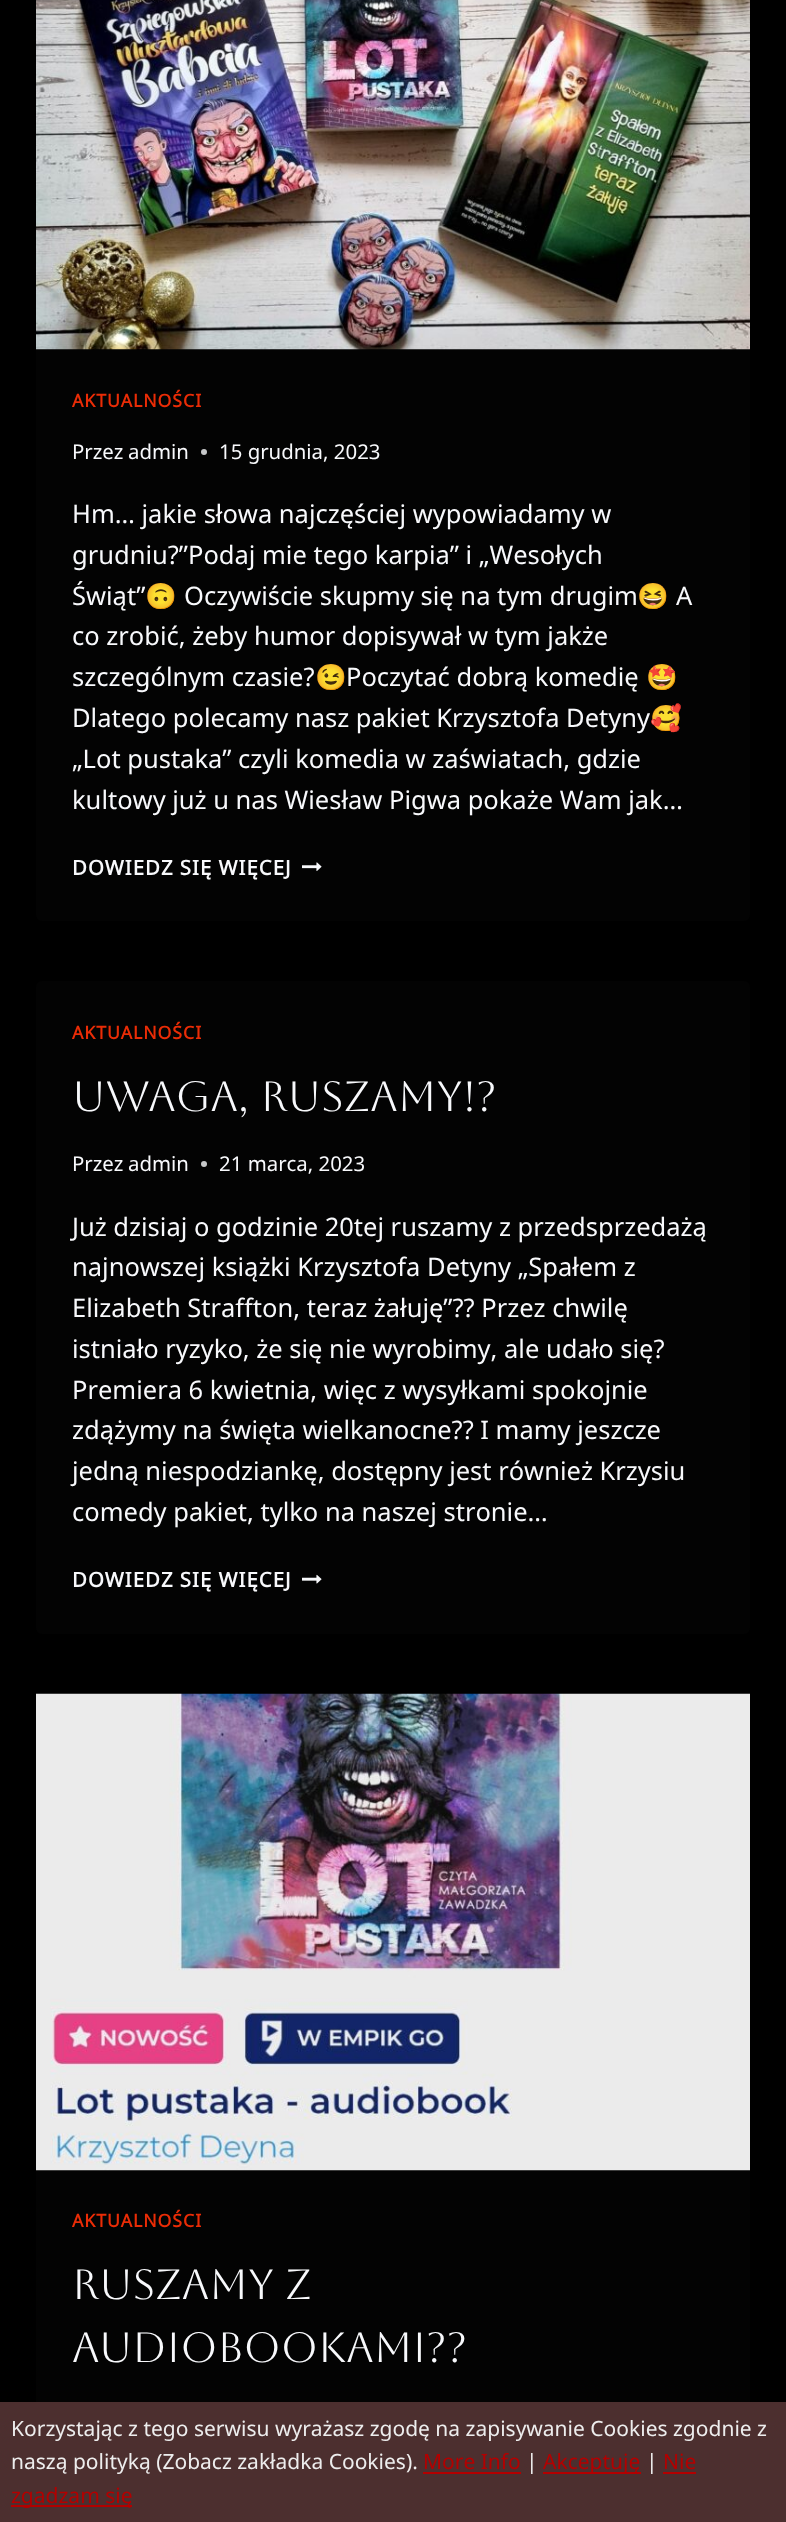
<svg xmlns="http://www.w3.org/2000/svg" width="786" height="2522">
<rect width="100%" height="100%" fill="#000"/>
<rect x="36" y="-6" width="714" height="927" rx="6" fill="#030303"/>
<image x="36" y="0" width="714" height="350" href="media/1.png"/>
<text x="72" y="407" style="font-family:Noto Sans Osage;font-size:17.75px;font-weight:bold;letter-spacing:0.9px;fill:#ea2c06">AKTUALNOŚCI</text>
<text x="72" y="459" style="font-family:Noto Sans Osage;font-size:20.4px;fill:#f8f9fc">Przez</text>
<text x="128" y="459" style="font-family:Noto Sans Osage;font-size:20.4px;fill:#f8f9fc">admin</text>
<circle cx="204" cy="452" r="3" fill="#c7c8ca"/>
<text x="219" y="459" style="font-family:Noto Sans Osage;font-size:20.4px;fill:#f8f9fc">15 grudnia, 2023</text>
<text x="72" y="523" style="font-family:Noto Sans Osage;font-size:25.5px;fill:#f8f9fc">Hm… jakie słowa najczęściej wypowiadamy w</text>
<text x="72" y="564" style="font-family:Noto Sans Osage;font-size:25.5px;fill:#f8f9fc">grudniu?”Podaj mie tego karpia” i „Wesołych</text>
<text x="72" y="605" style="font-family:Noto Sans Osage;font-size:25.5px;fill:#f8f9fc">Świąt”</text>
<text x="145" y="605" style="font-family:Noto Color Emoji;font-size:25.5px;fill:#f8f9fc">🙃</text>
<text x="184" y="605" style="font-family:Noto Sans Osage;font-size:25.5px;fill:#f8f9fc">Oczywiście skupmy się na tym drugim</text>
<text x="637" y="605" style="font-family:Noto Color Emoji;font-size:25.5px;fill:#f8f9fc">😆</text>
<text x="676" y="605" style="font-family:Noto Sans Osage;font-size:25.5px;fill:#f8f9fc">A</text>
<text x="72" y="645" style="font-family:Noto Sans Osage;font-size:25.5px;fill:#f8f9fc">co zrobić, żeby humor dopisywał w tym jakże</text>
<text x="72" y="686" style="font-family:Noto Sans Osage;font-size:25.5px;fill:#f8f9fc">szczególnym czasie?</text>
<text x="315" y="686" style="font-family:Noto Color Emoji;font-size:25.5px;fill:#f8f9fc">😉</text>
<text x="346" y="686" style="font-family:Noto Sans Osage;font-size:25.5px;fill:#f8f9fc">Poczytać dobrą komedię</text>
<text x="646" y="686" style="font-family:Noto Color Emoji;font-size:25.5px;fill:#f8f9fc">🤩</text>
<text x="72" y="727" style="font-family:Noto Sans Osage;font-size:25.5px;fill:#f8f9fc">Dlatego polecamy nasz pakiet Krzysztofa Detyny</text>
<text x="650" y="727" style="font-family:Noto Color Emoji;font-size:25.5px;fill:#f8f9fc">🥰</text>
<text x="72" y="768" style="font-family:Noto Sans Osage;font-size:25.5px;fill:#f8f9fc">„Lot pustaka” czyli komedia w zaświatach, gdzie</text>
<text x="72" y="809" style="font-family:Noto Sans Osage;font-size:25.5px;fill:#f8f9fc">kultowy już u nas Wiesław Pigwa pokaże Wam jak…</text>
<text x="72" y="875" style="font-family:Noto Sans Osage;font-size:20.4px;font-weight:bold;letter-spacing:1px;fill:#f8f9fc">DOWIEDZ SIĘ WIĘCEJ</text>
<image x="302" y="862" width="20" height="9" href="media/2.png"/>
<rect x="36" y="981" width="714" height="653" rx="6" fill="#030303"/>
<text x="72" y="1039" style="font-family:Noto Sans Osage;font-size:17.75px;font-weight:bold;letter-spacing:0.9px;fill:#ea2c06">AKTUALNOŚCI</text>
<text x="72" y="1111" style="font-family:Aboreto;font-size:42px;fill:#f8f9fc">UWAGA, RUSZAMY!?</text>
<text x="72" y="1171" style="font-family:Noto Sans Osage;font-size:20.4px;fill:#f8f9fc">Przez</text>
<text x="128" y="1171" style="font-family:Noto Sans Osage;font-size:20.4px;fill:#f8f9fc">admin</text>
<circle cx="204" cy="1164" r="3" fill="#c7c8ca"/>
<text x="219" y="1171" style="font-family:Noto Sans Osage;font-size:20.4px;fill:#f8f9fc">21 marca, 2023</text>
<text x="72" y="1236" style="font-family:Noto Sans Osage;font-size:25.5px;fill:#f8f9fc">Już dzisiaj o godzinie 20tej ruszamy z przedsprzedażą</text>
<text x="72" y="1276" style="font-family:Noto Sans Osage;font-size:25.5px;fill:#f8f9fc">najnowszej książki Krzysztofa Detyny „Spałem z</text>
<text x="72" y="1317" style="font-family:Noto Sans Osage;font-size:25.5px;fill:#f8f9fc">Elizabeth Straffton, teraz żałuję”?? Przez chwilę</text>
<text x="72" y="1358" style="font-family:Noto Sans Osage;font-size:25.5px;fill:#f8f9fc">istniało ryzyko, że się nie wyrobimy, ale udało się?</text>
<text x="72" y="1399" style="font-family:Noto Sans Osage;font-size:25.5px;fill:#f8f9fc">Premiera 6 kwietnia, więc z wysyłkami spokojnie</text>
<text x="72" y="1439" style="font-family:Noto Sans Osage;font-size:25.5px;fill:#f8f9fc">zdążymy na święta wielkanocne?? I mamy jeszcze</text>
<text x="72" y="1480" style="font-family:Noto Sans Osage;font-size:25.5px;fill:#f8f9fc">jedną niespodziankę, dostępny jest również Krzysiu</text>
<text x="72" y="1521" style="font-family:Noto Sans Osage;font-size:25.5px;fill:#f8f9fc">comedy pakiet, tylko na naszej stronie…</text>
<text x="72" y="1587" style="font-family:Noto Sans Osage;font-size:20.4px;font-weight:bold;letter-spacing:1px;fill:#f8f9fc">DOWIEDZ SIĘ WIĘCEJ</text>
<image x="302" y="1574" width="20" height="10" href="media/3.png"/>
<rect x="36" y="2170" width="714" height="232" fill="#030303"/>
<image x="36" y="1693" width="714" height="478" href="media/4.png"/>
<text x="72" y="2227" style="font-family:Noto Sans Osage;font-size:17.75px;font-weight:bold;letter-spacing:0.9px;fill:#ea2c06">AKTUALNOŚCI</text>
<text x="72" y="2299" style="font-family:Aboreto;font-size:42px;fill:#f8f9fc">Ruszamy z</text>
<text x="72" y="2362" style="font-family:Aboreto;font-size:42px;fill:#f8f9fc">audiobookami??</text>
<rect y="2402" width="786" height="120" fill="#4c2f2f"/>
<text x="11" y="2436" style="font-family:Noto Sans Osage;font-size:21px;fill:#ededed">Korzystając z tego serwisu wyrażasz zgodę na zapisywanie Cookies zgodnie z</text>
<text x="11" y="2469" style="font-family:Noto Sans Osage;font-size:21px;fill:#ededed">naszą polityką (Zobacz zakładka Cookies).</text>
<text x="423" y="2469" style="font-family:Noto Sans Osage;font-size:21px;fill:#b30000">More Info</text>
<rect x="423" y="2472" width="98" height="2" fill="#b30000"/>
<text x="526" y="2469" style="font-family:Noto Sans Osage;font-size:21px;fill:#ededed">|</text>
<rect x="543" y="2472" width="98" height="2" fill="#b30000"/>
<text x="543" y="2469" style="font-family:Noto Sans Osage;font-size:21px;fill:#b30000">Akceptuję</text>
<text x="646" y="2469" style="font-family:Noto Sans Osage;font-size:21px;fill:#ededed">|</text>
<text x="663" y="2469" style="font-family:Noto Sans Osage;font-size:21px;fill:#b30000">Nie</text>
<rect x="663" y="2472" width="33" height="2" fill="#b30000"/>
<rect x="11" y="2505" width="121" height="2" fill="#b30000"/>
<text x="11" y="2503" style="font-family:Noto Sans Osage;font-size:21px;fill:#b30000">zgadzam się</text>
</svg>
